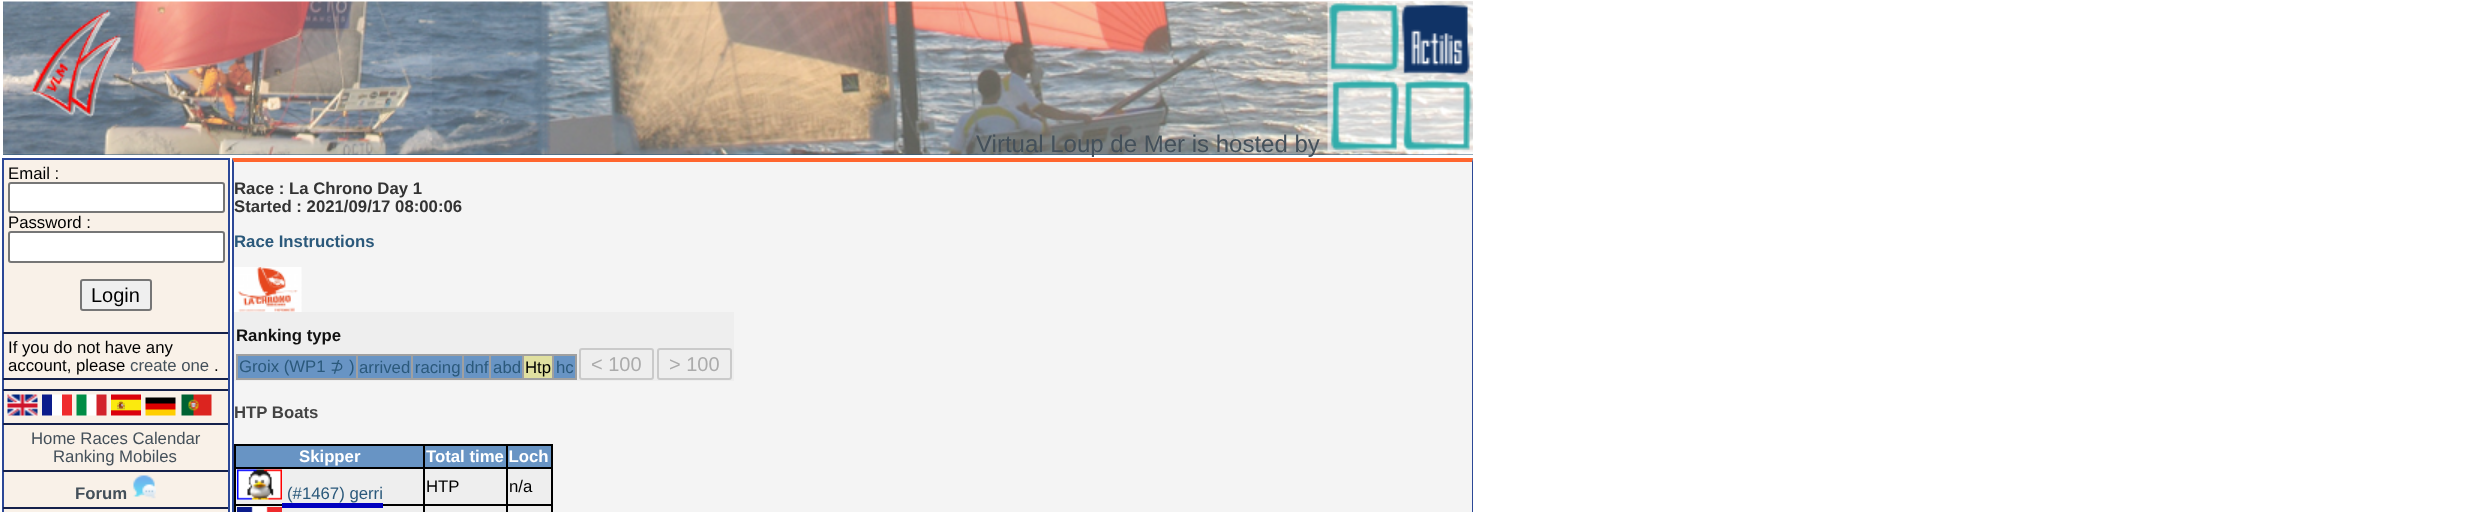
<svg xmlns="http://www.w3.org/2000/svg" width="2474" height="512">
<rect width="100%" height="100%" fill="#fff"/>
<rect x="3" y="154" width="1470" height="1" fill="#2b597b"/>
<image x="3" y="1" width="1470" height="154" href="media/1.png"/>
<image x="31" y="9" width="91" height="109" href="media/2.png"/>
<text x="976" y="152" style="font-family:Liberation Sans;font-size:24px;fill:#44505a">Virtual Loup de Mer is hosted by</text>
<image x="1327" y="1" width="146" height="151" href="media/3.png"/>
<rect x="3" y="159" width="226" height="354" fill="#f9f1e8" stroke="#2c4897" stroke-width="2"/>
<rect x="3" y="332" width="225" height="2" fill="#15214b"/>
<text x="8" y="179" style="font-family:Liberation Sans;font-size:16.75px;fill:#000">Email :</text>
<rect x="9" y="183" width="215" height="29" rx="2" fill="#fff" stroke="#767676" stroke-width="2"/>
<text x="8" y="228" style="font-family:Liberation Sans;font-size:16.75px;fill:#000">Password :</text>
<rect x="9" y="232" width="215" height="30" rx="2" fill="#fff" stroke="#767676" stroke-width="2"/>
<rect x="81" y="280" width="70" height="30" rx="2" fill="#efefef" stroke="#767676" stroke-width="2"/>
<text x="91" y="302" style="font-family:Liberation Sans;font-size:20px;fill:#000">Login</text>
<rect x="3" y="378" width="225" height="2" fill="#15214b"/>
<text x="8" y="353" style="font-family:Liberation Sans;font-size:16.75px;fill:#000">If you do not have any</text>
<text x="8" y="371" style="font-family:Liberation Sans;font-size:16.75px;fill:#000">account, please</text>
<text x="130" y="371" style="font-family:Liberation Sans;font-size:16.75px;fill:#44505a">create one</text>
<text x="214" y="371" style="font-family:Liberation Sans;font-size:16.75px;fill:#000">.</text>
<rect x="3" y="389" width="225" height="2" fill="#15214b"/>
<rect x="3" y="423" width="225" height="2" fill="#15214b"/>
<image x="7" y="394" width="31" height="22" href="media/4.png"/>
<image x="42" y="394" width="30" height="22" href="media/5.png"/>
<image x="76" y="394" width="31" height="22" href="media/6.png"/>
<image x="111" y="394" width="30" height="22" href="media/7.png"/>
<image x="145" y="397" width="31" height="19" href="media/8.png"/>
<image x="181" y="394" width="31" height="22" href="media/9.png"/>
<rect x="3" y="470" width="225" height="2" fill="#15214b"/>
<text x="31" y="444" style="font-family:Liberation Sans;font-size:16.75px;fill:#44505a">Home Races Calendar</text>
<text x="53" y="462" style="font-family:Liberation Sans;font-size:16.75px;fill:#44505a">Ranking Mobiles</text>
<rect x="3" y="507" width="225" height="2" fill="#15214b"/>
<text x="75" y="499" style="font-family:Liberation Sans;font-size:16.75px;font-weight:bold;fill:#44505a">Forum</text>
<image x="133" y="475" width="23" height="24" href="media/10.png"/>
<rect x="234" y="162" width="1238" height="350" fill="#f4f4f4"/>
<path d="M232 158h1241l-1 4h-1238z" fill="#ff652e"/>
<path d="M1473 158v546l-1-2v-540z" fill="#2c4897"/>
<path d="M232 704v-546l2 4v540z" fill="#2c4897"/>
<text x="234" y="194" style="font-family:Liberation Sans;font-size:16.75px;font-weight:bold;fill:#333">Race : La Chrono Day 1</text>
<text x="234" y="212" style="font-family:Liberation Sans;font-size:16.75px;font-weight:bold;fill:#333">Started : 2021/09/17 08:00:06</text>
<text x="234" y="247" style="font-family:Liberation Sans;font-size:16.75px;font-weight:bold;fill:#2b597b">Race Instructions</text>
<image x="234" y="267" width="68" height="45" href="media/11.png"/>
<rect x="234" y="312" width="500" height="69" fill="#eee"/>
<text x="236" y="341" style="font-family:Liberation Sans;font-size:16.75px;font-weight:bold;fill:#111">Ranking type</text>
<rect x="238" y="356" width="118" height="22" fill="#6894c4"/>
<rect x="552" y="354" width="24" height="2" fill="#a0a0a0"/>
<rect x="575" y="354" width="2" height="26" fill="#a0a0a0"/>
<rect x="552" y="378" width="24" height="2" fill="#a0a0a0"/>
<rect x="552" y="354" width="2" height="26" fill="#a0a0a0"/>
<rect x="522" y="354" width="32" height="2" fill="#a0a0a0"/>
<rect x="522" y="378" width="32" height="2" fill="#a0a0a0"/>
<rect x="522" y="354" width="2" height="26" fill="#a0a0a0"/>
<rect x="489" y="354" width="35" height="2" fill="#a0a0a0"/>
<rect x="489" y="378" width="35" height="2" fill="#a0a0a0"/>
<rect x="489" y="354" width="2" height="26" fill="#a0a0a0"/>
<rect x="462" y="354" width="29" height="2" fill="#a0a0a0"/>
<rect x="462" y="378" width="29" height="2" fill="#a0a0a0"/>
<rect x="462" y="354" width="2" height="26" fill="#a0a0a0"/>
<rect x="411" y="354" width="53" height="2" fill="#a0a0a0"/>
<rect x="411" y="378" width="53" height="2" fill="#a0a0a0"/>
<rect x="411" y="354" width="2" height="26" fill="#a0a0a0"/>
<rect x="356" y="354" width="57" height="2" fill="#a0a0a0"/>
<rect x="356" y="378" width="57" height="2" fill="#a0a0a0"/>
<rect x="356" y="354" width="2" height="26" fill="#a0a0a0"/>
<rect x="236" y="354" width="121" height="2" fill="#a0a0a0"/>
<rect x="236" y="378" width="121" height="2" fill="#a0a0a0"/>
<rect x="236" y="354" width="2" height="26" fill="#a0a0a0"/>
<text x="239" y="372" style="font-family:Liberation Sans;font-size:16.75px;fill:#2b597b">Groix (WP1</text>
<text x="330" y="372" style="font-family:DejaVu Sans;font-size:16.75px;fill:#2b597b">⊅</text>
<text x="349" y="372" style="font-family:Liberation Sans;font-size:16.75px;fill:#2b597b">)</text>
<rect x="413" y="356" width="49" height="22" fill="#6894c4"/>
<rect x="464" y="356" width="25" height="22" fill="#6894c4"/>
<rect x="491" y="356" width="31" height="22" fill="#6894c4"/>
<rect x="358" y="356" width="53" height="22" fill="#6894c4"/>
<text x="359" y="373" style="font-family:Liberation Sans;font-size:16.75px;fill:#2b597b">arrived racing dnf abd</text>
<rect x="524" y="356" width="28" height="22" fill="#e0e0a0"/>
<text x="525" y="373" style="font-family:Liberation Sans;font-size:16.75px;fill:#000">Htp</text>
<rect x="554" y="356" width="21" height="22" fill="#6894c4"/>
<text x="556" y="373" style="font-family:Liberation Sans;font-size:16.75px;fill:#2b597b">hc</text>
<rect x="580" y="349" width="73" height="30" rx="2" fill="none" stroke="#cacaca" stroke-width="2"/>
<text x="591" y="371" style="font-family:Liberation Sans;font-size:20px;fill:#ababab">&lt; 100</text>
<rect x="658" y="349" width="73" height="30" rx="2" fill="none" stroke="#cacaca" stroke-width="2"/>
<text x="669" y="371" style="font-family:Liberation Sans;font-size:20px;fill:#ababab">&gt; 100</text>
<text x="234" y="418" style="font-family:Liberation Sans;font-size:16.75px;font-weight:bold;fill:#444">HTP Boats</text>
<rect x="236" y="446" width="187" height="21" fill="#6894c4"/>
<rect x="506" y="444" width="46" height="2" fill="#000"/>
<rect x="506" y="467" width="46" height="2" fill="#000"/>
<rect x="506" y="504" width="46" height="2" fill="#000"/>
<rect x="236" y="506" width="316" height="6" fill="#eee"/>
<rect x="506" y="504" width="2" height="8" fill="#000"/>
<rect x="423" y="504" width="84" height="2" fill="#000"/>
<rect x="506" y="467" width="2" height="39" fill="#000"/>
<rect x="423" y="467" width="84" height="2" fill="#000"/>
<rect x="506" y="444" width="2" height="24" fill="#000"/>
<rect x="423" y="444" width="84" height="2" fill="#000"/>
<rect x="423" y="504" width="2" height="8" fill="#000"/>
<rect x="234" y="504" width="191" height="2" fill="#000"/>
<rect x="423" y="467" width="2" height="39" fill="#000"/>
<rect x="234" y="467" width="191" height="2" fill="#000"/>
<rect x="423" y="444" width="2" height="24" fill="#000"/>
<rect x="234" y="444" width="191" height="2" fill="#000"/>
<rect x="234" y="504" width="2" height="8" fill="#000"/>
<rect x="234" y="467" width="2" height="39" fill="#000"/>
<rect x="234" y="444" width="2" height="24" fill="#000"/>
<text x="299" y="462" style="font-family:Liberation Sans;font-size:16.75px;font-weight:bold;fill:#fff">Skipper</text>
<rect x="508" y="446" width="43" height="21" fill="#6894c4"/>
<rect x="551" y="504" width="2" height="8" fill="#000"/>
<rect x="551" y="467" width="2" height="39" fill="#000"/>
<rect x="551" y="444" width="2" height="24" fill="#000"/>
<rect x="425" y="446" width="81" height="21" fill="#6894c4"/>
<text x="426" y="462" style="font-family:Liberation Sans;font-size:16.75px;font-weight:bold;fill:#fff">Total time Loch</text>
<rect x="236" y="469" width="187" height="35" fill="#eee"/>
<image x="237" y="469" width="45" height="31" href="media/12.png"/>
<text x="287" y="499" style="font-family:Liberation Sans;font-size:16.75px;fill:#2b597b">(#1467) gerri</text>
<rect x="282" y="503" width="101" height="5" fill="#0000c0"/>
<rect x="425" y="469" width="81" height="35" fill="#eee"/>
<text x="426" y="492" style="font-family:Liberation Sans;font-size:16.75px;fill:#000">HTP</text>
<rect x="508" y="469" width="43" height="35" fill="#eee"/>
<text x="509" y="492" style="font-family:Liberation Sans;font-size:16.75px;fill:#000">n/a</text>
<image x="237" y="507" width="45" height="5" href="media/13.png"/>
</svg>
